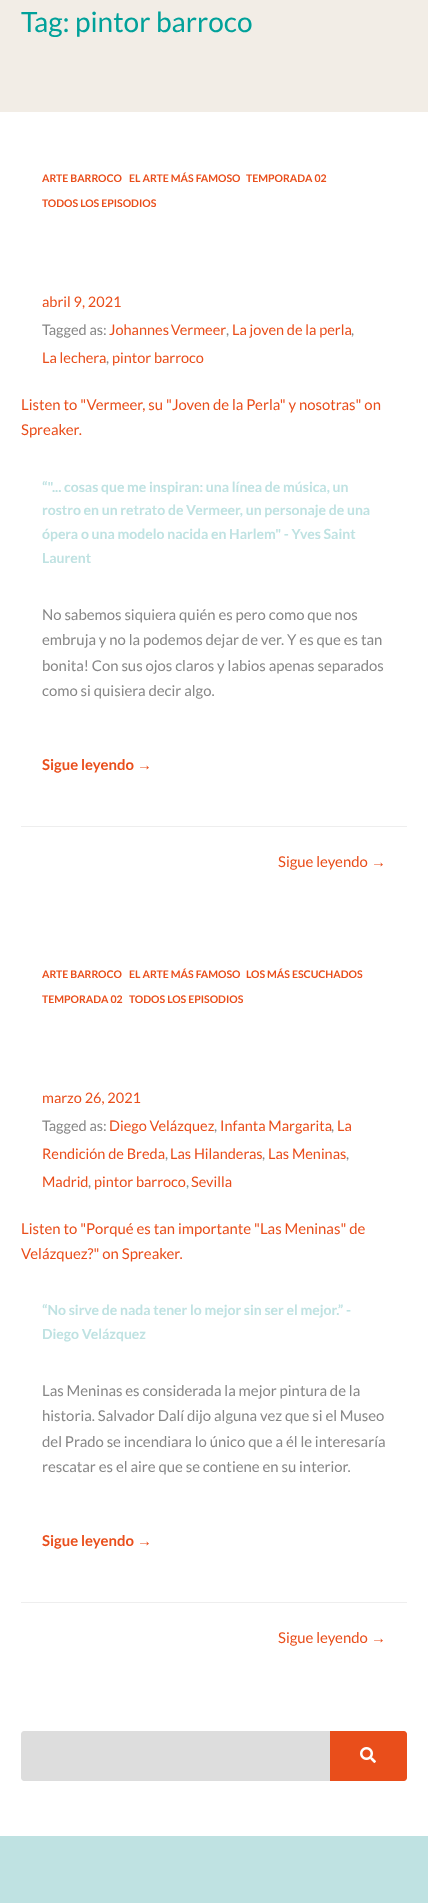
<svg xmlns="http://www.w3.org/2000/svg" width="428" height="1903">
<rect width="100%" height="100%" fill="#f2ede6"/>
<text x="21" y="32" style="font-family:Lato;font-size:28px;fill:#00a19a">Tag: pintor barroco</text>
<rect y="112" width="428" height="1724" fill="#fff"/>
<text x="42" y="182" style="font-family:Lato;font-size:10.5px;font-weight:bold;fill:#e94e1b">ARTE BARROCO</text>
<text x="129" y="182" style="font-family:Lato;font-size:10.5px;font-weight:bold;fill:#e94e1b">EL ARTE MÁS FAMOSO</text>
<text x="246" y="182" style="font-family:Lato;font-size:10.5px;font-weight:bold;fill:#e94e1b">TEMPORADA 02</text>
<text x="42" y="207" style="font-family:Lato;font-size:10.5px;font-weight:bold;fill:#e94e1b">TODOS LOS EPISODIOS</text>
<text x="42" y="307" style="font-family:Lato;font-size:14.5px;fill:#e94e1b">abril 9, 2021</text>
<text x="42" y="335" style="font-family:Lato;font-size:14.5px;fill:#878787">Tagged as:</text>
<text x="109" y="335" word-spacing="-1" style="font-family:Lato;font-size:14.5px;fill:#e94e1b">Johannes Vermeer</text>
<text x="226" y="335" style="font-family:Lato;font-size:14.5px;fill:#878787">,</text>
<text x="232" y="335" style="font-family:Lato;font-size:14.5px;fill:#e94e1b">La joven de la perla</text>
<text x="351" y="335" style="font-family:Lato;font-size:14.5px;fill:#878787">,</text>
<text x="42" y="363" style="font-family:Lato;font-size:14.5px;fill:#e94e1b">La lechera</text>
<text x="106" y="363" style="font-family:Lato;font-size:14.5px;fill:#878787">,</text>
<text x="112" y="363" style="font-family:Lato;font-size:14.5px;fill:#e94e1b">pintor barroco</text>
<text x="21" y="410" style="font-family:Lato;font-size:14.9px;fill:#e94e1b">Listen to "Vermeer, su "Joven de la Perla" y nosotras" on</text>
<text x="21" y="435" style="font-family:Lato;font-size:14.9px;fill:#e94e1b">Spreaker.</text>
<text x="42" y="492" style="font-family:Lato;font-size:14px;font-weight:bold;fill:#bfe2e2">“"... cosas que me inspiran: una línea de música, un</text>
<text x="42" y="515" style="font-family:Lato;font-size:14px;font-weight:bold;fill:#bfe2e2">rostro en un retrato de Vermeer, un personaje de una</text>
<text x="42" y="539" style="font-family:Lato;font-size:14px;font-weight:bold;fill:#bfe2e2">ópera o una modelo nacida en Harlem" - Yves Saint</text>
<text x="42" y="563" style="font-family:Lato;font-size:14px;font-weight:bold;fill:#bfe2e2">Laurent</text>
<text x="42" y="620" style="font-family:Lato;font-size:14.9px;fill:#878787">No sabemos siquiera quién es pero como que nos</text>
<text x="42" y="645" style="font-family:Lato;font-size:14.9px;fill:#878787">embruja y no la podemos dejar de ver. Y es que es tan</text>
<text x="42" y="671" style="font-family:Lato;font-size:14.9px;fill:#878787">bonita! Con sus ojos claros y labios apenas separados</text>
<text x="42" y="696" style="font-family:Lato;font-size:14.9px;fill:#878787">como si quisiera decir algo.</text>
<text x="42" y="770" style="font-family:Lato;font-size:14.9px;font-weight:bold;fill:#e94e1b">Sigue leyendo</text>
<text x="137" y="770" style="font-family:Liberation Serif;font-size:14.9px;font-weight:bold;fill:#e94e1b">→</text>
<rect x="21" y="826" width="386" height="1" fill="#eee"/>
<text x="278" y="867" style="font-family:Lato;font-size:14.9px;fill:#e94e1b">Sigue leyendo</text>
<text x="371" y="867" style="font-family:Liberation Serif;font-size:14.9px;fill:#e94e1b">→</text>
<text x="42" y="978" style="font-family:Lato;font-size:10.5px;font-weight:bold;fill:#e94e1b">ARTE BARROCO</text>
<text x="129" y="978" style="font-family:Lato;font-size:10.5px;font-weight:bold;fill:#e94e1b">EL ARTE MÁS FAMOSO</text>
<text x="246" y="978" style="font-family:Lato;font-size:10.5px;font-weight:bold;fill:#e94e1b">LOS MÁS ESCUCHADOS</text>
<text x="42" y="1003" style="font-family:Lato;font-size:10.5px;font-weight:bold;fill:#e94e1b">TEMPORADA 02</text>
<text x="129" y="1003" style="font-family:Lato;font-size:10.5px;font-weight:bold;fill:#e94e1b">TODOS LOS EPISODIOS</text>
<text x="42" y="1103" style="font-family:Lato;font-size:14.5px;fill:#e94e1b">marzo 26, 2021</text>
<text x="42" y="1131" style="font-family:Lato;font-size:14.5px;fill:#878787">Tagged as:</text>
<text x="109" y="1131" style="font-family:Lato;font-size:14.5px;fill:#e94e1b">Diego Velázquez</text>
<text x="214" y="1131" style="font-family:Lato;font-size:14.5px;fill:#878787">,</text>
<text x="220" y="1131" style="font-family:Lato;font-size:14.5px;fill:#e94e1b">Infanta Margarita</text>
<text x="331" y="1131" style="font-family:Lato;font-size:14.5px;fill:#878787">,</text>
<text x="337" y="1131" style="font-family:Lato;font-size:14.5px;fill:#e94e1b">La</text>
<text x="42" y="1159" style="font-family:Lato;font-size:14.5px;fill:#e94e1b">Rendición de Breda</text>
<text x="165" y="1159" style="font-family:Lato;font-size:14.5px;fill:#878787">,</text>
<text x="170" y="1159" style="font-family:Lato;font-size:14.5px;fill:#e94e1b">Las Hilanderas</text>
<text x="262" y="1159" style="font-family:Lato;font-size:14.5px;fill:#878787">,</text>
<text x="268" y="1159" style="font-family:Lato;font-size:14.5px;fill:#e94e1b">Las Meninas</text>
<text x="346" y="1159" style="font-family:Lato;font-size:14.5px;fill:#878787">,</text>
<text x="42" y="1187" style="font-family:Lato;font-size:14.5px;fill:#e94e1b">Madrid</text>
<text x="88" y="1187" style="font-family:Lato;font-size:14.5px;fill:#878787">,</text>
<text x="94" y="1187" style="font-family:Lato;font-size:14.5px;fill:#e94e1b">pintor barroco</text>
<text x="186" y="1187" style="font-family:Lato;font-size:14.5px;fill:#878787">,</text>
<text x="191" y="1187" style="font-family:Lato;font-size:14.5px;fill:#e94e1b">Sevilla</text>
<text x="21" y="1234" style="font-family:Lato;font-size:14.9px;fill:#e94e1b">Listen to "Porqué es tan importante "Las Meninas" de</text>
<text x="21" y="1259" style="font-family:Lato;font-size:14.9px;fill:#e94e1b">Velázquez?" on Spreaker.</text>
<text x="42" y="1315" style="font-family:Lato;font-size:14px;font-weight:bold;fill:#bfe2e2">“No sirve de nada tener lo mejor sin ser el mejor.” -</text>
<text x="42" y="1339" style="font-family:Lato;font-size:14px;font-weight:bold;fill:#bfe2e2">Diego Velázquez</text>
<text x="42" y="1396" style="font-family:Lato;font-size:14.9px;fill:#878787">Las Meninas es considerada la mejor pintura de la</text>
<text x="42" y="1421" style="font-family:Lato;font-size:14.9px;fill:#878787">historia. Salvador Dalí dijo alguna vez que si el Museo</text>
<text x="42" y="1447" style="font-family:Lato;font-size:14.9px;fill:#878787">del Prado se incendiara lo único que a él le interesaría</text>
<text x="42" y="1472" style="font-family:Lato;font-size:14.9px;fill:#878787">rescatar es el aire que se contiene en su interior.</text>
<text x="42" y="1546" style="font-family:Lato;font-size:14.9px;font-weight:bold;fill:#e94e1b">Sigue leyendo</text>
<text x="137" y="1546" style="font-family:Liberation Serif;font-size:14.9px;font-weight:bold;fill:#e94e1b">→</text>
<rect x="21" y="1602" width="386" height="1" fill="#eee"/>
<text x="278" y="1643" style="font-family:Lato;font-size:14.9px;fill:#e94e1b">Sigue leyendo</text>
<text x="371" y="1643" style="font-family:Liberation Serif;font-size:14.9px;fill:#e94e1b">→</text>
<path d="M24 1731h306v50h-306c-1.5 0-3-1.5-3-3v-44c0-1.5 1.5-3 3-3z" fill="#ddd"/>
<path d="M330 1731h74c1.5 0 3 1.5 3 3v44c0 1.5-1.5 3-3 3h-74z" fill="#e94e1b"/>
<image x="360" y="1747" width="16" height="16" href="media/1.png"/>
<rect y="1836" width="428" height="67" fill="#bfe2e2"/>
</svg>
